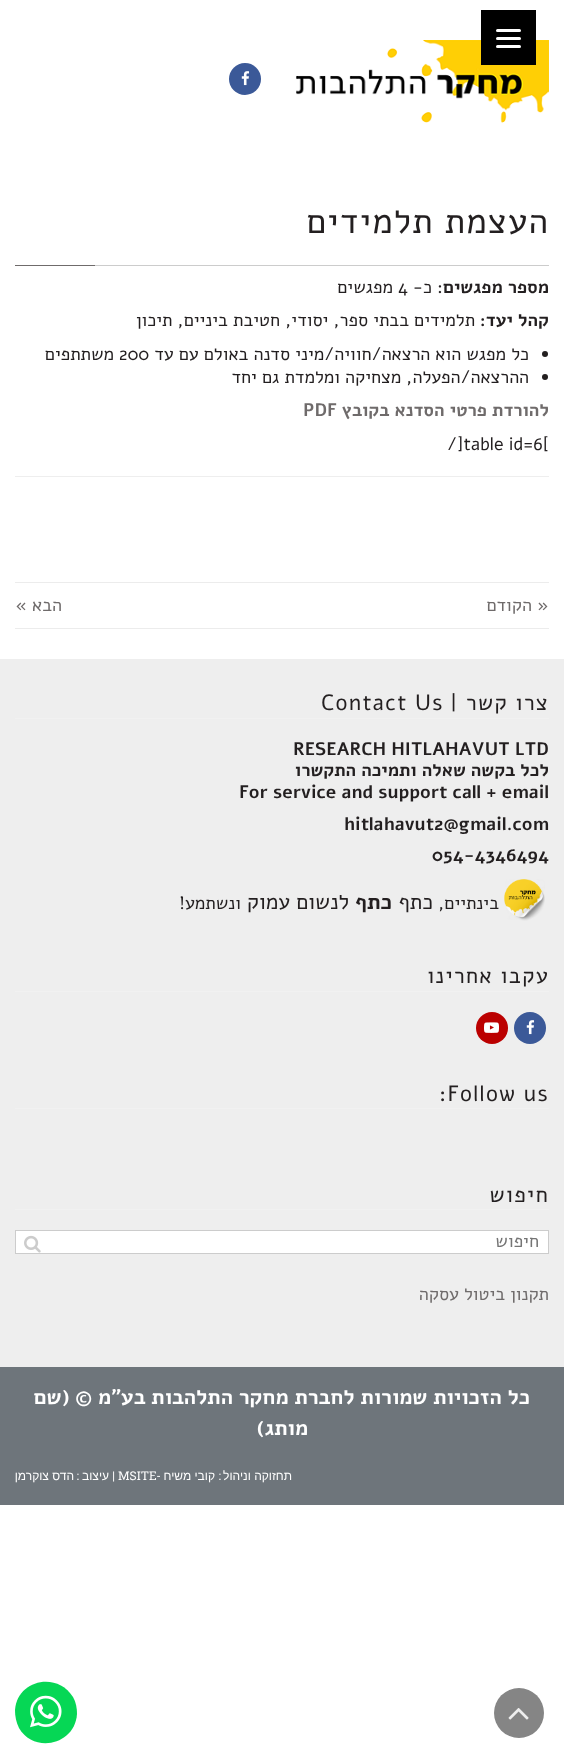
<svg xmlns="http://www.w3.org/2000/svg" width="564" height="1758">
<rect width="100%" height="100%" fill="#fff"/>
<image x="296" y="40" width="253" height="83" href="media/1.png"/>
<rect x="481" y="10" width="55" height="55" fill="#000"/>
<rect x="496" y="37" width="25" height="3" rx="1.5" fill="#fff"/>
<rect x="496" y="29" width="25" height="3" rx="1.5" fill="#fff"/>
<rect x="496" y="45" width="25" height="3" rx="1.5" fill="#fff"/>
<circle cx="245" cy="79" r="16" fill="#3b5998"/>
<image x="241" y="71" width="9" height="15" href="media/2.png"/>
<text x="549" y="233" style="font-family:Alef;font-size:35px;letter-spacing:1.25px;direction:rtl;fill:#231f20">העצמת תלמידים</text>
<rect x="95" y="265" width="454" height="1" fill="#ccc"/>
<rect x="15" y="265" width="80" height="1" fill="#6f6b6b"/>
<text x="549" y="293" style="font-family:Alef;font-size:18px;font-weight:bold;direction:rtl;fill:#231f20">מספר מפגשים</text>
<text x="443" y="293" style="font-family:Alef;font-size:18px;direction:rtl;fill:#231f20">: כ-</text>
<text x="398" y="293" style="font-family:Alef;font-size:18px;fill:#231f20">4</text>
<text x="393" y="293" style="font-family:Alef;font-size:18px;direction:rtl;fill:#231f20">מפגשים</text>
<text x="549" y="326" style="font-family:Alef;font-size:18px;font-weight:bold;direction:rtl;fill:#231f20">קהל יעד:</text>
<text x="475" y="326" style="font-family:Alef;font-size:18px;direction:rtl;fill:#231f20">תלמידים בבתי ספר, יסודי, חטיבת ביניים, תיכון</text>
<circle cx="545" cy="354" r="3" fill="#231f20"/>
<text x="529" y="360" style="font-family:Alef;font-size:18px;direction:rtl;fill:#231f20">כל מפגש הוא הרצאה/חוויה/מיני סדנה באולם עם עד</text>
<text x="119" y="360" style="font-family:Alef;font-size:18px;fill:#231f20">200</text>
<text x="114" y="360" style="font-family:Alef;font-size:18px;direction:rtl;fill:#231f20">משתתפים</text>
<circle cx="545" cy="377" r="3" fill="#231f20"/>
<text x="529" y="383" style="font-family:Alef;font-size:18px;direction:rtl;fill:#231f20">ההרצאה/הפעלה, מצחיקה ומלמדת גם יחד</text>
<text x="549" y="416" style="font-family:Alef;font-size:18px;font-weight:bold;direction:rtl;fill:#6f6b6b">להורדת פרטי הסדנא בקובץ</text>
<text x="303" y="416" style="font-family:Alef;font-size:18px;font-weight:bold;fill:#6f6b6b">PDF</text>
<text x="447" y="450" style="font-family:Alef;font-size:18px;fill:#231f20">/]table id=6[</text>
<rect x="15" y="476" width="534" height="1" fill="#eee"/>
<rect x="15" y="582" width="534" height="1" fill="#ececec"/>
<rect x="15" y="628" width="534" height="1" fill="#ececec"/>
<text x="549" y="611" style="font-family:Alef;font-size:18px;direction:rtl;fill:#6f6b6b">« הקודם</text>
<text x="62" y="611" style="font-family:Alef;font-size:18px;direction:rtl;fill:#6f6b6b">הבא »</text>
<rect y="659" width="564" height="708" fill="#eee"/>
<rect x="15" y="718" width="534" height="1" fill="#f1f1f1"/>
<text x="549" y="710" style="font-family:Alef;font-size:22px;letter-spacing:1.25px;direction:rtl;fill:#231f20">צרו קשר |</text>
<text x="321" y="710" style="font-family:Alef;font-size:22px;letter-spacing:1.25px;fill:#231f20">Contact Us</text>
<text x="293" y="755" style="font-family:Alef;font-size:18px;font-weight:bold;fill:#231f20">RESEARCH HITLAHAVUT LTD</text>
<text x="549" y="776" style="font-family:Alef;font-size:18px;font-weight:bold;direction:rtl;fill:#231f20">לכל בקשה שאלה ותמיכה התקשרו</text>
<text x="239" y="798" style="font-family:Alef;font-size:18px;font-weight:bold;fill:#231f20">For service and support call + email</text>
<text x="344" y="830" style="font-family:Alef;font-size:18px;font-weight:bold;fill:#231f20">hitlahavut2@gmail.com</text>
<text x="432" y="861" style="font-family:Alef;font-size:18px;font-weight:bold;fill:#231f20">054-4346494</text>
<image x="504" y="879" width="41" height="42" href="media/3.png"/>
<text x="499" y="909" style="font-family:Alef;font-size:18px;direction:rtl;fill:#231f20">בינתיים,</text>
<text x="433" y="909" style="font-family:Alef;font-size:21.5px;direction:rtl;fill:#231f20">כתף</text>
<text x="392" y="909" style="font-family:Alef;font-size:21.5px;font-weight:bold;direction:rtl;fill:#231f20">כתף</text>
<text x="349" y="909" style="font-family:Alef;font-size:21.5px;direction:rtl;fill:#231f20">לנשום עמוק</text>
<text x="241" y="909" style="font-family:Alef;font-size:18px;direction:rtl;fill:#231f20">ונשתמע!</text>
<rect x="15" y="991" width="534" height="1" fill="#f1f1f1"/>
<text x="549" y="983" style="font-family:Alef;font-size:22px;letter-spacing:1.25px;direction:rtl;fill:#231f20">עקבו אחרינו</text>
<circle cx="530" cy="1028" r="16" fill="#3b5998"/>
<image x="526" y="1020" width="9" height="15" href="media/2.png"/>
<circle cx="492" cy="1028" r="16" fill="#b00"/>
<image x="484" y="1022" width="15" height="11" href="media/4.png"/>
<rect x="15" y="1108" width="534" height="1" fill="#f1f1f1"/>
<text x="439" y="1101" style="font-family:Alef;font-size:22px;letter-spacing:1.25px;fill:#231f20">:Follow us</text>
<rect x="15" y="1209" width="534" height="1" fill="#f1f1f1"/>
<text x="549" y="1202" style="font-family:Alef;font-size:22px;letter-spacing:1.25px;direction:rtl;fill:#231f20">חיפוש</text>
<rect x="15.5" y="1230.5" width="533" height="23" fill="#fff" stroke="#ccc"/>
<text x="539" y="1247" style="font-family:Alef;font-size:18px;direction:rtl;fill:#757575">חיפוש</text>
<image x="24" y="1235" width="17" height="18" href="media/5.png"/>
<text x="549" y="1300" style="font-family:Alef;font-size:18px;direction:rtl;fill:#6f6b6b">תקנון ביטול עסקה</text>
<path d="M73 1697c3 5 4 11 4 17c-2 31-43 40-58 14c-3-6-4-12-4-18c2-30 42-39 58-13z" fill="#06d755"/>
<image x="30" y="1695" width="32" height="33" href="media/6.png"/>
<rect y="1367" width="564" height="138" fill="#6e757b"/>
<text x="530" y="1404" style="font-family:Alef;font-size:21px;font-weight:bold;direction:rtl;fill:#fff">כל הזכויות שמורות לחברת מחקר התלהבות בע"מ ©</text>
<text x="70" y="1404" style="font-family:Alef;font-size:21px;font-weight:bold;direction:rtl;fill:#fff">(שם</text>
<text x="308" y="1435" style="font-family:Alef;font-size:21px;font-weight:bold;direction:rtl;fill:#fff">מותג)</text>
<text x="292" y="1480" style="font-family:Liberation Sans;font-size:12px;direction:rtl;fill:#fff">תחזוקה וניהול</text>
<text x="221" y="1480" style="font-family:Roboto Slab;font-size:12px;direction:rtl;fill:#fff">:</text>
<text x="215" y="1480" style="font-family:Liberation Sans;font-size:12px;direction:rtl;fill:#fff">קובי משיח</text>
<text x="161" y="1480" style="font-family:Roboto Slab;font-size:12px;direction:rtl;fill:#fff">-</text>
<text x="118" y="1480" style="font-family:Roboto Slab;font-size:12px;fill:#fff">MSITE</text>
<text x="115" y="1480" style="font-family:Roboto Slab;font-size:12px;direction:rtl;fill:#fff">|</text>
<text x="109" y="1480" style="font-family:Liberation Sans;font-size:12px;direction:rtl;fill:#fff">עיצוב</text>
<text x="79" y="1480" style="font-family:Roboto Slab;font-size:12px;direction:rtl;fill:#fff">:</text>
<text x="74" y="1480" style="font-family:Liberation Sans;font-size:12px;direction:rtl;fill:#fff">הדס צוקרמן</text>
<circle cx="519" cy="1713" r="25" fill="#858585"/>
<image x="508" y="1708" width="21" height="12" href="media/7.png"/>
</svg>
